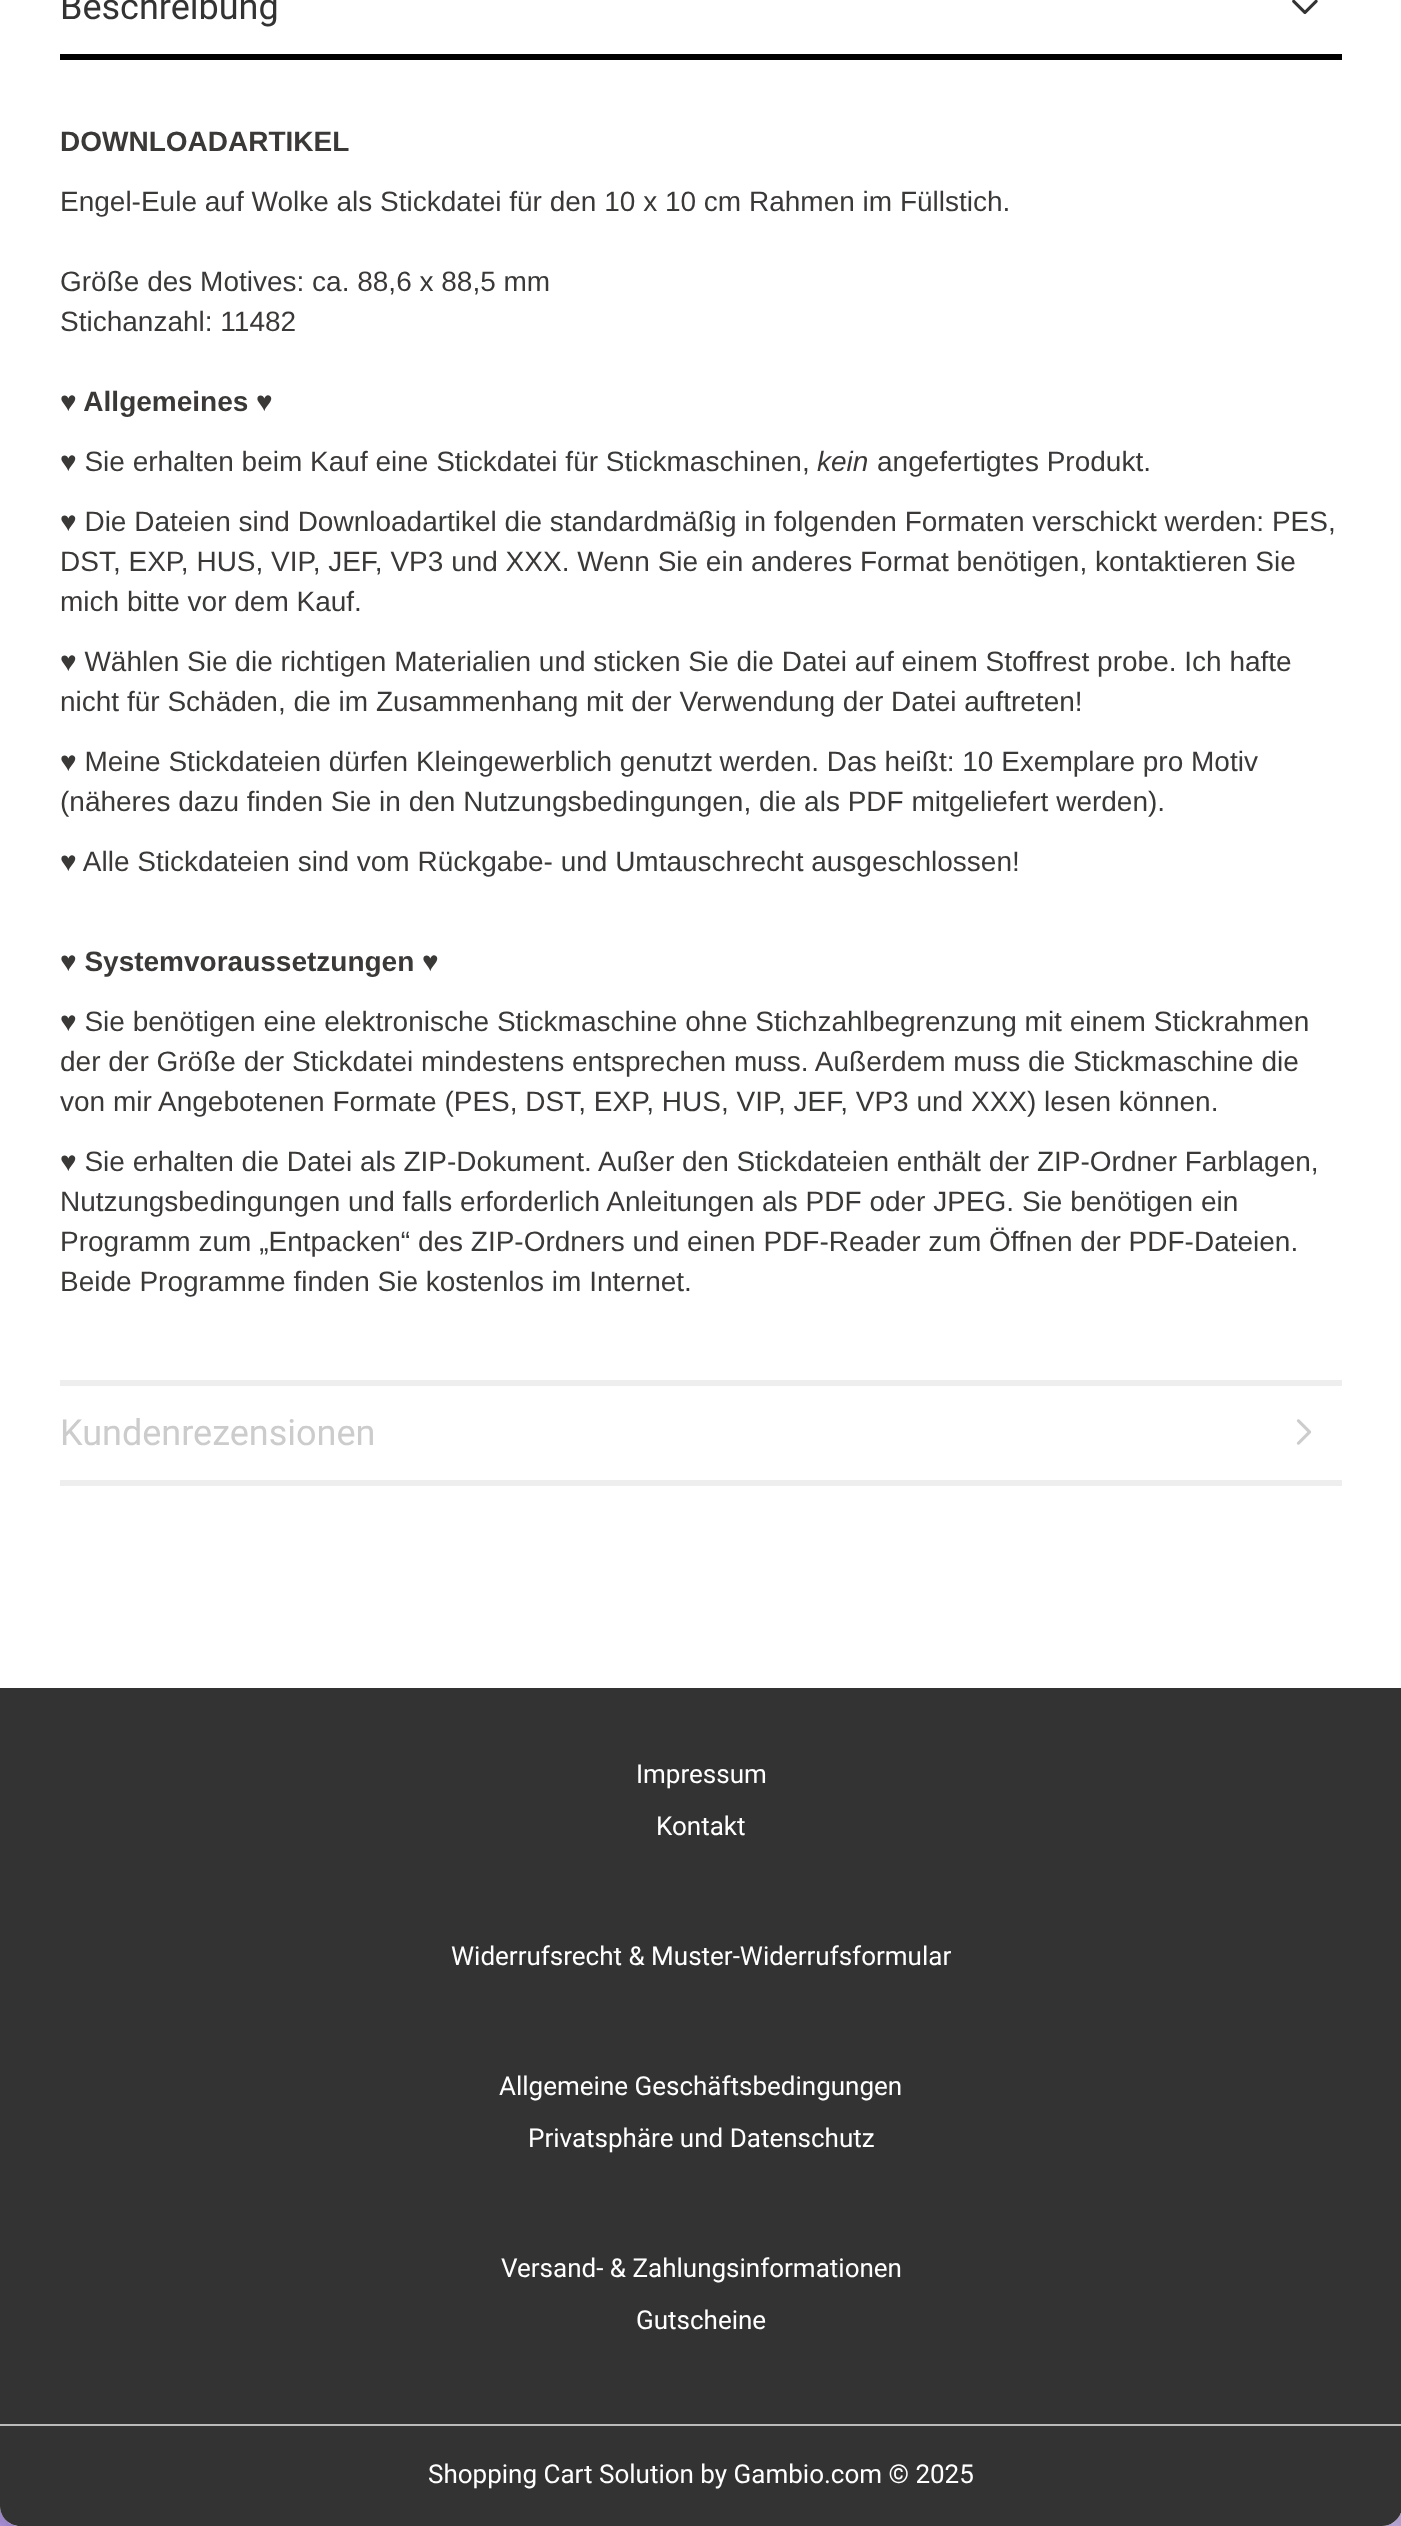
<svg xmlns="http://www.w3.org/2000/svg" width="1401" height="2526">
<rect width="100%" height="100%" fill="#fff"/>
<image x="0" y="2506" width="1401" height="20" href="media/1.png"/>
<rect y="-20" width="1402" height="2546" rx="20" fill="#fff"/>
<rect x="60" y="54" width="1282" height="6" fill="#000"/>
<text x="60" y="19" style="font-family:Roboto;font-size:36px;fill:#333">Beschreibung</text>
<image x="1292" y="0" width="26" height="15" href="media/2.png"/>
<rect x="60" y="1380" width="1282" height="6" fill="#eee"/>
<text x="60" y="151" style="font-family:Liberation Sans;font-size:28px;font-weight:bold;fill:#3b3938">DOWNLOADARTIKEL</text>
<text x="60" y="211" style="font-family:Liberation Sans;font-size:28px;fill:#3b3938">Engel-Eule auf Wolke als Stickdatei für den 10 x 10 cm Rahmen im Füllstich.</text>
<text x="60" y="291" style="font-family:Liberation Sans;font-size:28px;fill:#3b3938">Größe des Motives: ca. 88,6 x 88,5 mm</text>
<text x="60" y="331" style="font-family:Liberation Sans;font-size:28px;fill:#3b3938">Stichanzahl: 11482</text>
<text x="60" y="411" style="font-family:Liberation Sans;font-size:28px;font-weight:bold;fill:#3b3938">♥ Allgemeines ♥</text>
<text x="60" y="471" style="font-family:Liberation Sans;font-size:28px;fill:#3b3938">♥ Sie erhalten beim Kauf eine Stickdatei für Stickmaschinen,</text>
<text x="817" y="471" style="font-family:Liberation Sans;font-size:28px;font-style:italic;fill:#3b3938">kein</text>
<text x="877" y="471" style="font-family:Liberation Sans;font-size:28px;fill:#3b3938">angefertigtes Produkt.</text>
<text x="60" y="531" style="font-family:Liberation Sans;font-size:28px;fill:#3b3938">♥ Die Dateien sind Downloadartikel die standardmäßig in folgenden Formaten verschickt werden: PES,</text>
<text x="60" y="571" style="font-family:Liberation Sans;font-size:28px;fill:#3b3938">DST, EXP, HUS, VIP, JEF, VP3 und XXX. Wenn Sie ein anderes Format benötigen, kontaktieren Sie</text>
<text x="60" y="611" style="font-family:Liberation Sans;font-size:28px;fill:#3b3938">mich bitte vor dem Kauf.</text>
<text x="60" y="671" style="font-family:Liberation Sans;font-size:28px;fill:#3b3938">♥ Wählen Sie die richtigen Materialien und sticken Sie die Datei auf einem Stoffrest probe. Ich hafte</text>
<text x="60" y="711" style="font-family:Liberation Sans;font-size:28px;fill:#3b3938">nicht für Schäden, die im Zusammenhang mit der Verwendung der Datei auftreten!</text>
<text x="60" y="771" style="font-family:Liberation Sans;font-size:28px;fill:#3b3938">♥ Meine Stickdateien dürfen Kleingewerblich genutzt werden. Das heißt: 10 Exemplare pro Motiv</text>
<text x="60" y="811" style="font-family:Liberation Sans;font-size:28px;fill:#3b3938">(näheres dazu finden Sie in den Nutzungsbedingungen, die als PDF mitgeliefert werden).</text>
<text x="60" y="871" style="font-family:Liberation Sans;font-size:28px;fill:#3b3938">♥ Alle Stickdateien sind vom Rückgabe- und Umtauschrecht ausgeschlossen!</text>
<text x="60" y="971" style="font-family:Liberation Sans;font-size:28px;font-weight:bold;fill:#3b3938">♥ Systemvoraussetzungen ♥</text>
<text x="60" y="1031" style="font-family:Liberation Sans;font-size:28px;fill:#3b3938">♥ Sie benötigen eine elektronische Stickmaschine ohne Stichzahlbegrenzung mit einem Stickrahmen</text>
<text x="60" y="1071" style="font-family:Liberation Sans;font-size:28px;fill:#3b3938">der der Größe der Stickdatei mindestens entsprechen muss. Außerdem muss die Stickmaschine die</text>
<text x="60" y="1111" style="font-family:Liberation Sans;font-size:28px;fill:#3b3938">von mir Angebotenen Formate (PES, DST, EXP, HUS, VIP, JEF, VP3 und XXX) lesen können.</text>
<text x="60" y="1171" style="font-family:Liberation Sans;font-size:28px;fill:#3b3938">♥ Sie erhalten die Datei als ZIP-Dokument. Außer den Stickdateien enthält der ZIP-Ordner Farblagen,</text>
<text x="60" y="1211" style="font-family:Liberation Sans;font-size:28px;fill:#3b3938">Nutzungsbedingungen und falls erforderlich Anleitungen als PDF oder JPEG. Sie benötigen ein</text>
<text x="60" y="1251" style="font-family:Liberation Sans;font-size:28px;fill:#3b3938">Programm zum „Entpacken“ des ZIP-Ordners und einen PDF-Reader zum Öffnen der PDF-Dateien.</text>
<text x="60" y="1291" style="font-family:Liberation Sans;font-size:28px;fill:#3b3938">Beide Programme finden Sie kostenlos im Internet.</text>
<rect x="60" y="1480" width="1282" height="6" fill="#eee"/>
<text x="60" y="1445" style="font-family:Roboto;font-size:36px;fill:#ccc">Kundenrezensionen</text>
<image x="1296" y="1419" width="16" height="26" href="media/3.png"/>
<path d="M0 1688h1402v818c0 11-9 20-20 20h-1362c-11 0-20-9-20-20z" fill="#333"/>
<rect y="2424" width="1401" height="2" fill="#bbb"/>
<text x="636" y="1783" style="font-family:Roboto;font-size:26px;fill:#fff">Impressum</text>
<text x="656" y="1835" style="font-family:Roboto;font-size:26px;fill:#fff">Kontakt</text>
<text x="451" y="1965" style="font-family:Roboto;font-size:26px;fill:#fff">Widerrufsrecht &amp; Muster-Widerrufsformular</text>
<text x="499" y="2095" style="font-family:Roboto;font-size:26px;fill:#fff">Allgemeine Geschäftsbedingungen</text>
<text x="528" y="2147" style="font-family:Roboto;font-size:26px;fill:#fff">Privatsphäre und Datenschutz</text>
<text x="501" y="2277" style="font-family:Roboto;font-size:26px;fill:#fff">Versand- &amp; Zahlungsinformationen</text>
<text x="636" y="2329" style="font-family:Roboto;font-size:26px;fill:#fff">Gutscheine</text>
<text x="428" y="2483" style="font-family:Roboto;font-size:26px;fill:#fff">Shopping Cart Solution by Gambio.com © 2025</text>
</svg>
